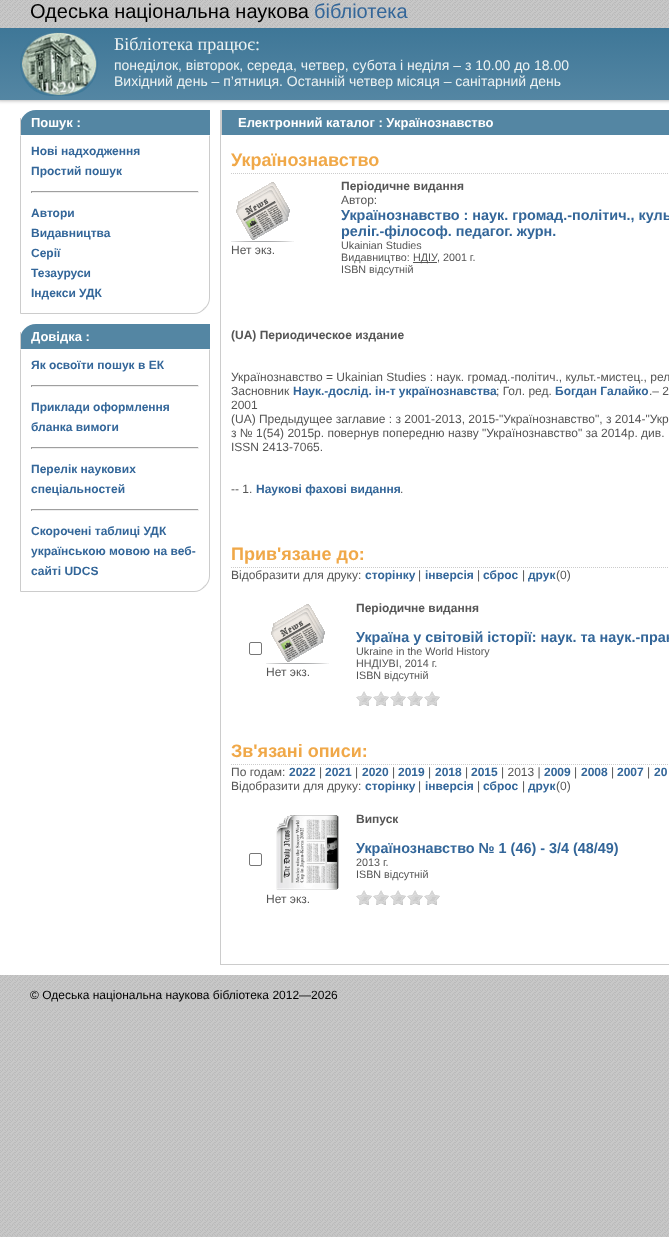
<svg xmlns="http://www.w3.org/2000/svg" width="669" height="1237">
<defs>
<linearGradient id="g1" gradientUnits="userSpaceOnUse" x1="600" y1="0" x2="600" y2="100"><stop offset="0" stop-color="#367193"/><stop offset="1" stop-color="#5486a3"/></linearGradient>
</defs>
<rect width="100%" height="100%" fill="#fff"/>
<image x="0" y="1015" width="669" height="222" href="media/1.png"/>
<rect x="-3" width="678" height="100" fill="#999" filter="blur(2px)"/>
<rect y="28" width="669" height="72" fill="url(#g1)"/>
<image x="0" y="0" width="669" height="28" href="media/2.png"/>
<text x="30" y="18" style="font-family:Liberation Sans;font-size:20px;fill:#000">Одеська національна наукова</text>
<text x="314" y="18" style="font-family:Liberation Sans;font-size:20px;fill:#369">бібліотека</text>
<image x="20" y="32" width="78" height="64" href="media/3.png"/>
<text x="114" y="50" style="font-family:Liberation Serif;font-size:18px;fill:#edf3f3">Бібліотека працює:</text>
<text x="114" y="70" style="font-family:Liberation Sans;font-size:14px;fill:#edf3f3">понеділок, вівторок, середа, четвер, субота і неділя – з 10.00 до 18.00</text>
<text x="114" y="86" style="font-family:Liberation Sans;font-size:14px;fill:#edf3f3">Вихідний день – п’ятниця. Останній четвер місяця – санітарний день</text>
<path d="M36 110h174v25h-190v-9c0-9 7-16 16-16z" fill="#5486a3"/>
<rect x="20" y="118" width="1" height="17" fill="#ccc"/>
<text x="31" y="127" style="font-family:Liberation Sans;font-size:13px;font-weight:bold;fill:#fff">Пошук :</text>
<path d="M210 135l-1 1v162c0 4-2 8-5 10l1 1c3-3 5-7 5-11z" fill="#ccc"/>
<path d="M194 314c4 0 8-2 11-5l-1-1c-2 3-6 5-10 5h-173l-1 1z" fill="#ccc"/>
<path d="M20 135v179l1-1v-177z" fill="#ccc"/>
<text x="31" y="155" style="font-family:Liberation Sans;font-size:12px;font-weight:bold;fill:#369">Нові надходження</text>
<text x="31" y="175" style="font-family:Liberation Sans;font-size:12px;font-weight:bold;fill:#369">Простий пошук</text>
<rect x="31" y="191" width="168" height="1" fill="#9f9f9f"/>
<rect x="198" y="191" width="1" height="2" fill="#eee"/>
<rect x="31" y="192" width="168" height="1" fill="#eee"/>
<rect x="31" y="191" width="1" height="2" fill="#9f9f9f"/>
<text x="31" y="217" style="font-family:Liberation Sans;font-size:12px;font-weight:bold;fill:#369">Автори</text>
<text x="31" y="237" style="font-family:Liberation Sans;font-size:12px;font-weight:bold;fill:#369">Видавництва</text>
<text x="31" y="257" style="font-family:Liberation Sans;font-size:12px;font-weight:bold;fill:#369">Серії</text>
<text x="31" y="277" style="font-family:Liberation Sans;font-size:12px;font-weight:bold;fill:#369">Тезауруси</text>
<text x="31" y="297" style="font-family:Liberation Sans;font-size:12px;font-weight:bold;fill:#369">Індекси УДК</text>
<path d="M36 324h174v25h-190v-9c0-9 7-16 16-16z" fill="#5486a3"/>
<rect x="20" y="332" width="1" height="17" fill="#ccc"/>
<text x="31" y="341" style="font-family:Liberation Sans;font-size:13px;font-weight:bold;fill:#fff">Довідка :</text>
<path d="M210 349l-1 1v226c0 4-2 8-5 10l1 1c3-3 5-7 5-11z" fill="#ccc"/>
<path d="M194 592c4 0 8-2 11-5l-1-1c-2 3-6 5-10 5h-173l-1 1z" fill="#ccc"/>
<path d="M21 350l-1-1v243l1-1z" fill="#ccc"/>
<text x="31" y="369" style="font-family:Liberation Sans;font-size:12px;font-weight:bold;fill:#369">Як освоїти пошук в ЕК</text>
<rect x="31" y="385" width="168" height="1" fill="#9f9f9f"/>
<rect x="198" y="385" width="1" height="2" fill="#eee"/>
<rect x="31" y="386" width="168" height="1" fill="#eee"/>
<rect x="31" y="385" width="1" height="2" fill="#9f9f9f"/>
<text x="31" y="411" style="font-family:Liberation Sans;font-size:12px;font-weight:bold;fill:#369">Приклади оформлення</text>
<text x="31" y="431" style="font-family:Liberation Sans;font-size:12px;font-weight:bold;fill:#369">бланка вимоги</text>
<rect x="31" y="447" width="168" height="1" fill="#9f9f9f"/>
<rect x="198" y="447" width="1" height="2" fill="#eee"/>
<rect x="31" y="448" width="168" height="1" fill="#eee"/>
<rect x="31" y="447" width="1" height="2" fill="#9f9f9f"/>
<text x="31" y="473" style="font-family:Liberation Sans;font-size:12px;font-weight:bold;fill:#369">Перелік наукових</text>
<text x="31" y="493" style="font-family:Liberation Sans;font-size:12px;font-weight:bold;fill:#369">спеціальностей</text>
<rect x="31" y="509" width="168" height="1" fill="#9f9f9f"/>
<rect x="198" y="509" width="1" height="2" fill="#eee"/>
<rect x="31" y="510" width="168" height="1" fill="#eee"/>
<rect x="31" y="509" width="1" height="2" fill="#9f9f9f"/>
<text x="31" y="535" style="font-family:Liberation Sans;font-size:12px;font-weight:bold;fill:#369">Скорочені таблиці УДК</text>
<text x="31" y="555" style="font-family:Liberation Sans;font-size:12px;font-weight:bold;fill:#369">українською мовою на веб-</text>
<text x="31" y="575" style="font-family:Liberation Sans;font-size:12px;font-weight:bold;fill:#369">сайті UDCS</text>
<rect x="220" y="964" width="449" height="1" fill="#ccc"/>
<rect x="220" y="110" width="1" height="855" fill="#ccc"/>
<rect x="222" y="110" width="447" height="25" fill="#5486a3"/>
<rect x="221" y="110" width="1" height="25" fill="#ccc"/>
<text x="238" y="127" style="font-family:Liberation Sans;font-size:13px;font-weight:bold;fill:#fff">Електронний каталог : Українознавство</text>
<path d="M231 173.5h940" fill="none" stroke="#ccc" stroke-dasharray="1 1"/>
<text x="231" y="166" style="font-family:Liberation Sans;font-size:18px;font-weight:bold;fill:#f0a848">Українознавство</text>
<image x="231" y="182" width="63" height="60" href="media/4.png"/>
<text x="231" y="254" style="font-family:Liberation Sans;font-size:12px;fill:#555">Нет экз.</text>
<text x="341" y="190" style="font-family:Liberation Sans;font-size:12px;font-weight:bold;fill:#555">Періодичне видання</text>
<text x="341" y="204" style="font-family:Liberation Sans;font-size:12px;fill:#555">Автор:</text>
<text x="341" y="220" style="font-family:Liberation Sans;font-size:14.4px;font-weight:bold;fill:#369">Українознавство : наук. громад.-політич., куль</text>
<text x="341" y="236" style="font-family:Liberation Sans;font-size:14.4px;font-weight:bold;fill:#369">реліг.-філософ. педагог. журн.</text>
<text x="341" y="249" style="font-family:Liberation Sans;font-size:10.75px;fill:#555">Ukainian Studies</text>
<text x="341" y="261" style="font-family:Liberation Sans;font-size:10.75px;fill:#555">Видавництво:</text>
<rect x="413" y="262" width="24" height="1" fill="#555"/>
<text x="413" y="261" style="font-family:Liberation Sans;font-size:10.75px;fill:#555">НДІУ</text>
<text x="437" y="261" style="font-family:Liberation Sans;font-size:10.75px;fill:#555">, 2001 г.</text>
<text x="341" y="273" style="font-family:Liberation Sans;font-size:10.75px;fill:#555">ISBN відсутній</text>
<text x="231" y="339" style="font-family:Liberation Sans;font-size:12px;font-weight:bold;fill:#555">(UA) Периодическое издание</text>
<text x="231" y="381" style="font-family:Liberation Sans;font-size:12px;fill:#555">Українознавство = Ukainian Studies : наук. громад.-політич., культ.-мистец., рел</text>
<text x="231" y="395" style="font-family:Liberation Sans;font-size:12px;fill:#555">Засновник</text>
<text x="293" y="395" style="font-family:Liberation Sans;font-size:12px;font-weight:bold;fill:#369">Наук.-дослід. ін-т українознавства</text>
<text x="496" y="395" style="font-family:Liberation Sans;font-size:12px;fill:#555">; Гол. ред.</text>
<text x="555" y="395" style="font-family:Liberation Sans;font-size:12px;font-weight:bold;fill:#369">Богдан Галайко</text>
<text x="649" y="395" style="font-family:Liberation Sans;font-size:12px;fill:#555">.– 2</text>
<text x="231" y="409" style="font-family:Liberation Sans;font-size:12px;fill:#555">2001</text>
<text x="231" y="423" style="font-family:Liberation Sans;font-size:12px;fill:#555">(UA) Предыдущее заглавие : з 2001-2013, 2015-"Українознавство", з 2014-"Укр</text>
<text x="231" y="437" style="font-family:Liberation Sans;font-size:12px;fill:#555">з № 1(54) 2015р. повернув попередню назву "Українознавство" за 2014р. див.</text>
<text x="231" y="451" style="font-family:Liberation Sans;font-size:12px;fill:#555">ISSN 2413-7065.</text>
<text x="231" y="493" style="font-family:Liberation Sans;font-size:12px;fill:#555">-- 1.</text>
<text x="256" y="493" style="font-family:Liberation Sans;font-size:12px;font-weight:bold;fill:#369">Наукові фахові видання</text>
<text x="400" y="493" style="font-family:Liberation Sans;font-size:12px;fill:#555">.</text>
<path d="M231 567.5h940" fill="none" stroke="#ccc" stroke-dasharray="1 1"/>
<text x="231" y="560" style="font-family:Liberation Sans;font-size:18px;font-weight:bold;fill:#f0a848">Прив'язане до:</text>
<text x="231" y="579" style="font-family:Liberation Sans;font-size:12px;fill:#555">Відобразити для друку:</text>
<text x="365" y="579" style="font-family:Liberation Sans;font-size:12px;font-weight:bold;fill:#369">сторінку</text>
<text x="418" y="579" style="font-family:Liberation Sans;font-size:12px;fill:#555">|</text>
<text x="425" y="579" style="font-family:Liberation Sans;font-size:12px;font-weight:bold;fill:#369">інверсія</text>
<text x="477" y="579" style="font-family:Liberation Sans;font-size:12px;fill:#555">|</text>
<text x="483" y="579" style="font-family:Liberation Sans;font-size:12px;font-weight:bold;fill:#369">сброс</text>
<text x="522" y="579" style="font-family:Liberation Sans;font-size:12px;fill:#555">|</text>
<text x="528" y="579" style="font-family:Liberation Sans;font-size:12px;font-weight:bold;fill:#369">друк</text>
<text x="556" y="579" style="font-family:Liberation Sans;font-size:12px;fill:#555">(0)</text>
<rect x="249.5" y="642.5" width="12" height="12" rx="1.5" fill="none" stroke="#767676"/>
<image x="266" y="604" width="63" height="60" href="media/4.png"/>
<text x="266" y="676" style="font-family:Liberation Sans;font-size:12px;fill:#555">Нет экз.</text>
<text x="356" y="612" style="font-family:Liberation Sans;font-size:12px;font-weight:bold;fill:#555">Періодичне видання</text>
<text x="356" y="642" style="font-family:Liberation Sans;font-size:14.4px;font-weight:bold;fill:#369">Україна у світовій історії: наук. та наук.-прак</text>
<text x="356" y="655" style="font-family:Liberation Sans;font-size:10.75px;fill:#555">Ukraine in the World History</text>
<text x="356" y="667" style="font-family:Liberation Sans;font-size:10.75px;fill:#555">ННДІУВІ, 2014 г.</text>
<text x="356" y="679" style="font-family:Liberation Sans;font-size:10.75px;fill:#555">ISBN відсутній</text>
<image x="356" y="691" width="16" height="15" href="media/5.png"/>
<image x="373" y="691" width="16" height="15" href="media/5.png"/>
<image x="390" y="691" width="16" height="15" href="media/5.png"/>
<image x="407" y="691" width="16" height="15" href="media/5.png"/>
<image x="424" y="691" width="16" height="15" href="media/5.png"/>
<path d="M231 764.5h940" fill="none" stroke="#ccc" stroke-dasharray="1 1"/>
<text x="231" y="757" style="font-family:Liberation Sans;font-size:18px;font-weight:bold;fill:#f0a848">Зв'язані описи:</text>
<text x="231" y="776" style="font-family:Liberation Sans;font-size:12px;fill:#555">По годам:</text>
<text x="289" y="776" style="font-family:Liberation Sans;font-size:12px;font-weight:bold;fill:#369">2022</text>
<text x="319" y="776" style="font-family:Liberation Sans;font-size:12px;fill:#555">|</text>
<text x="325" y="776" style="font-family:Liberation Sans;font-size:12px;font-weight:bold;fill:#369">2021</text>
<text x="355" y="776" style="font-family:Liberation Sans;font-size:12px;fill:#555">|</text>
<text x="362" y="776" style="font-family:Liberation Sans;font-size:12px;font-weight:bold;fill:#369">2020</text>
<text x="392" y="776" style="font-family:Liberation Sans;font-size:12px;fill:#555">|</text>
<text x="398" y="776" style="font-family:Liberation Sans;font-size:12px;font-weight:bold;fill:#369">2019</text>
<text x="428" y="776" style="font-family:Liberation Sans;font-size:12px;fill:#555">|</text>
<text x="435" y="776" style="font-family:Liberation Sans;font-size:12px;font-weight:bold;fill:#369">2018</text>
<text x="465" y="776" style="font-family:Liberation Sans;font-size:12px;fill:#555">|</text>
<text x="471" y="776" style="font-family:Liberation Sans;font-size:12px;font-weight:bold;fill:#369">2015</text>
<text x="501" y="776" style="font-family:Liberation Sans;font-size:12px;fill:#555">| 2013 |</text>
<text x="544" y="776" style="font-family:Liberation Sans;font-size:12px;font-weight:bold;fill:#369">2009</text>
<text x="574" y="776" style="font-family:Liberation Sans;font-size:12px;fill:#555">|</text>
<text x="581" y="776" style="font-family:Liberation Sans;font-size:12px;font-weight:bold;fill:#369">2008</text>
<text x="611" y="776" style="font-family:Liberation Sans;font-size:12px;fill:#555">|</text>
<text x="617" y="776" style="font-family:Liberation Sans;font-size:12px;font-weight:bold;fill:#369">2007</text>
<text x="647" y="776" style="font-family:Liberation Sans;font-size:12px;fill:#555">|</text>
<text x="654" y="776" style="font-family:Liberation Sans;font-size:12px;font-weight:bold;fill:#369">20</text>
<text x="231" y="790" style="font-family:Liberation Sans;font-size:12px;fill:#555">Відобразити для друку:</text>
<text x="365" y="790" style="font-family:Liberation Sans;font-size:12px;font-weight:bold;fill:#369">сторінку</text>
<text x="418" y="790" style="font-family:Liberation Sans;font-size:12px;fill:#555">|</text>
<text x="425" y="790" style="font-family:Liberation Sans;font-size:12px;font-weight:bold;fill:#369">інверсія</text>
<text x="477" y="790" style="font-family:Liberation Sans;font-size:12px;fill:#555">|</text>
<text x="483" y="790" style="font-family:Liberation Sans;font-size:12px;font-weight:bold;fill:#369">сброс</text>
<text x="522" y="790" style="font-family:Liberation Sans;font-size:12px;fill:#555">|</text>
<text x="528" y="790" style="font-family:Liberation Sans;font-size:12px;font-weight:bold;fill:#369">друк</text>
<text x="556" y="790" style="font-family:Liberation Sans;font-size:12px;fill:#555">(0)</text>
<text x="356" y="823" style="font-family:Liberation Sans;font-size:12px;font-weight:bold;fill:#555">Випуск</text>
<text x="356" y="853" style="font-family:Liberation Sans;font-size:14.4px;font-weight:bold;fill:#369">Українознавство № 1 (46) - 3/4 (48/49)</text>
<text x="356" y="866" style="font-family:Liberation Sans;font-size:10.75px;fill:#555">2013 г.</text>
<text x="356" y="878" style="font-family:Liberation Sans;font-size:10.75px;fill:#555">ISBN відсутній</text>
<image x="356" y="890" width="16" height="15" href="media/5.png"/>
<image x="373" y="890" width="16" height="15" href="media/5.png"/>
<image x="390" y="890" width="16" height="15" href="media/5.png"/>
<image x="407" y="890" width="16" height="15" href="media/5.png"/>
<image x="424" y="890" width="16" height="15" href="media/5.png"/>
<rect x="249.5" y="853.5" width="12" height="12" rx="1.5" fill="none" stroke="#767676"/>
<image x="276" y="815" width="63" height="75" href="media/6.png"/>
<text x="266" y="903" style="font-family:Liberation Sans;font-size:12px;fill:#555">Нет экз.</text>
<image x="0" y="975" width="669" height="40" href="media/7.png"/>
<text x="30" y="999" style="font-family:Liberation Sans;font-size:12px;fill:#000">© Одеська національна наукова бібліотека 2012—2026</text>
</svg>
